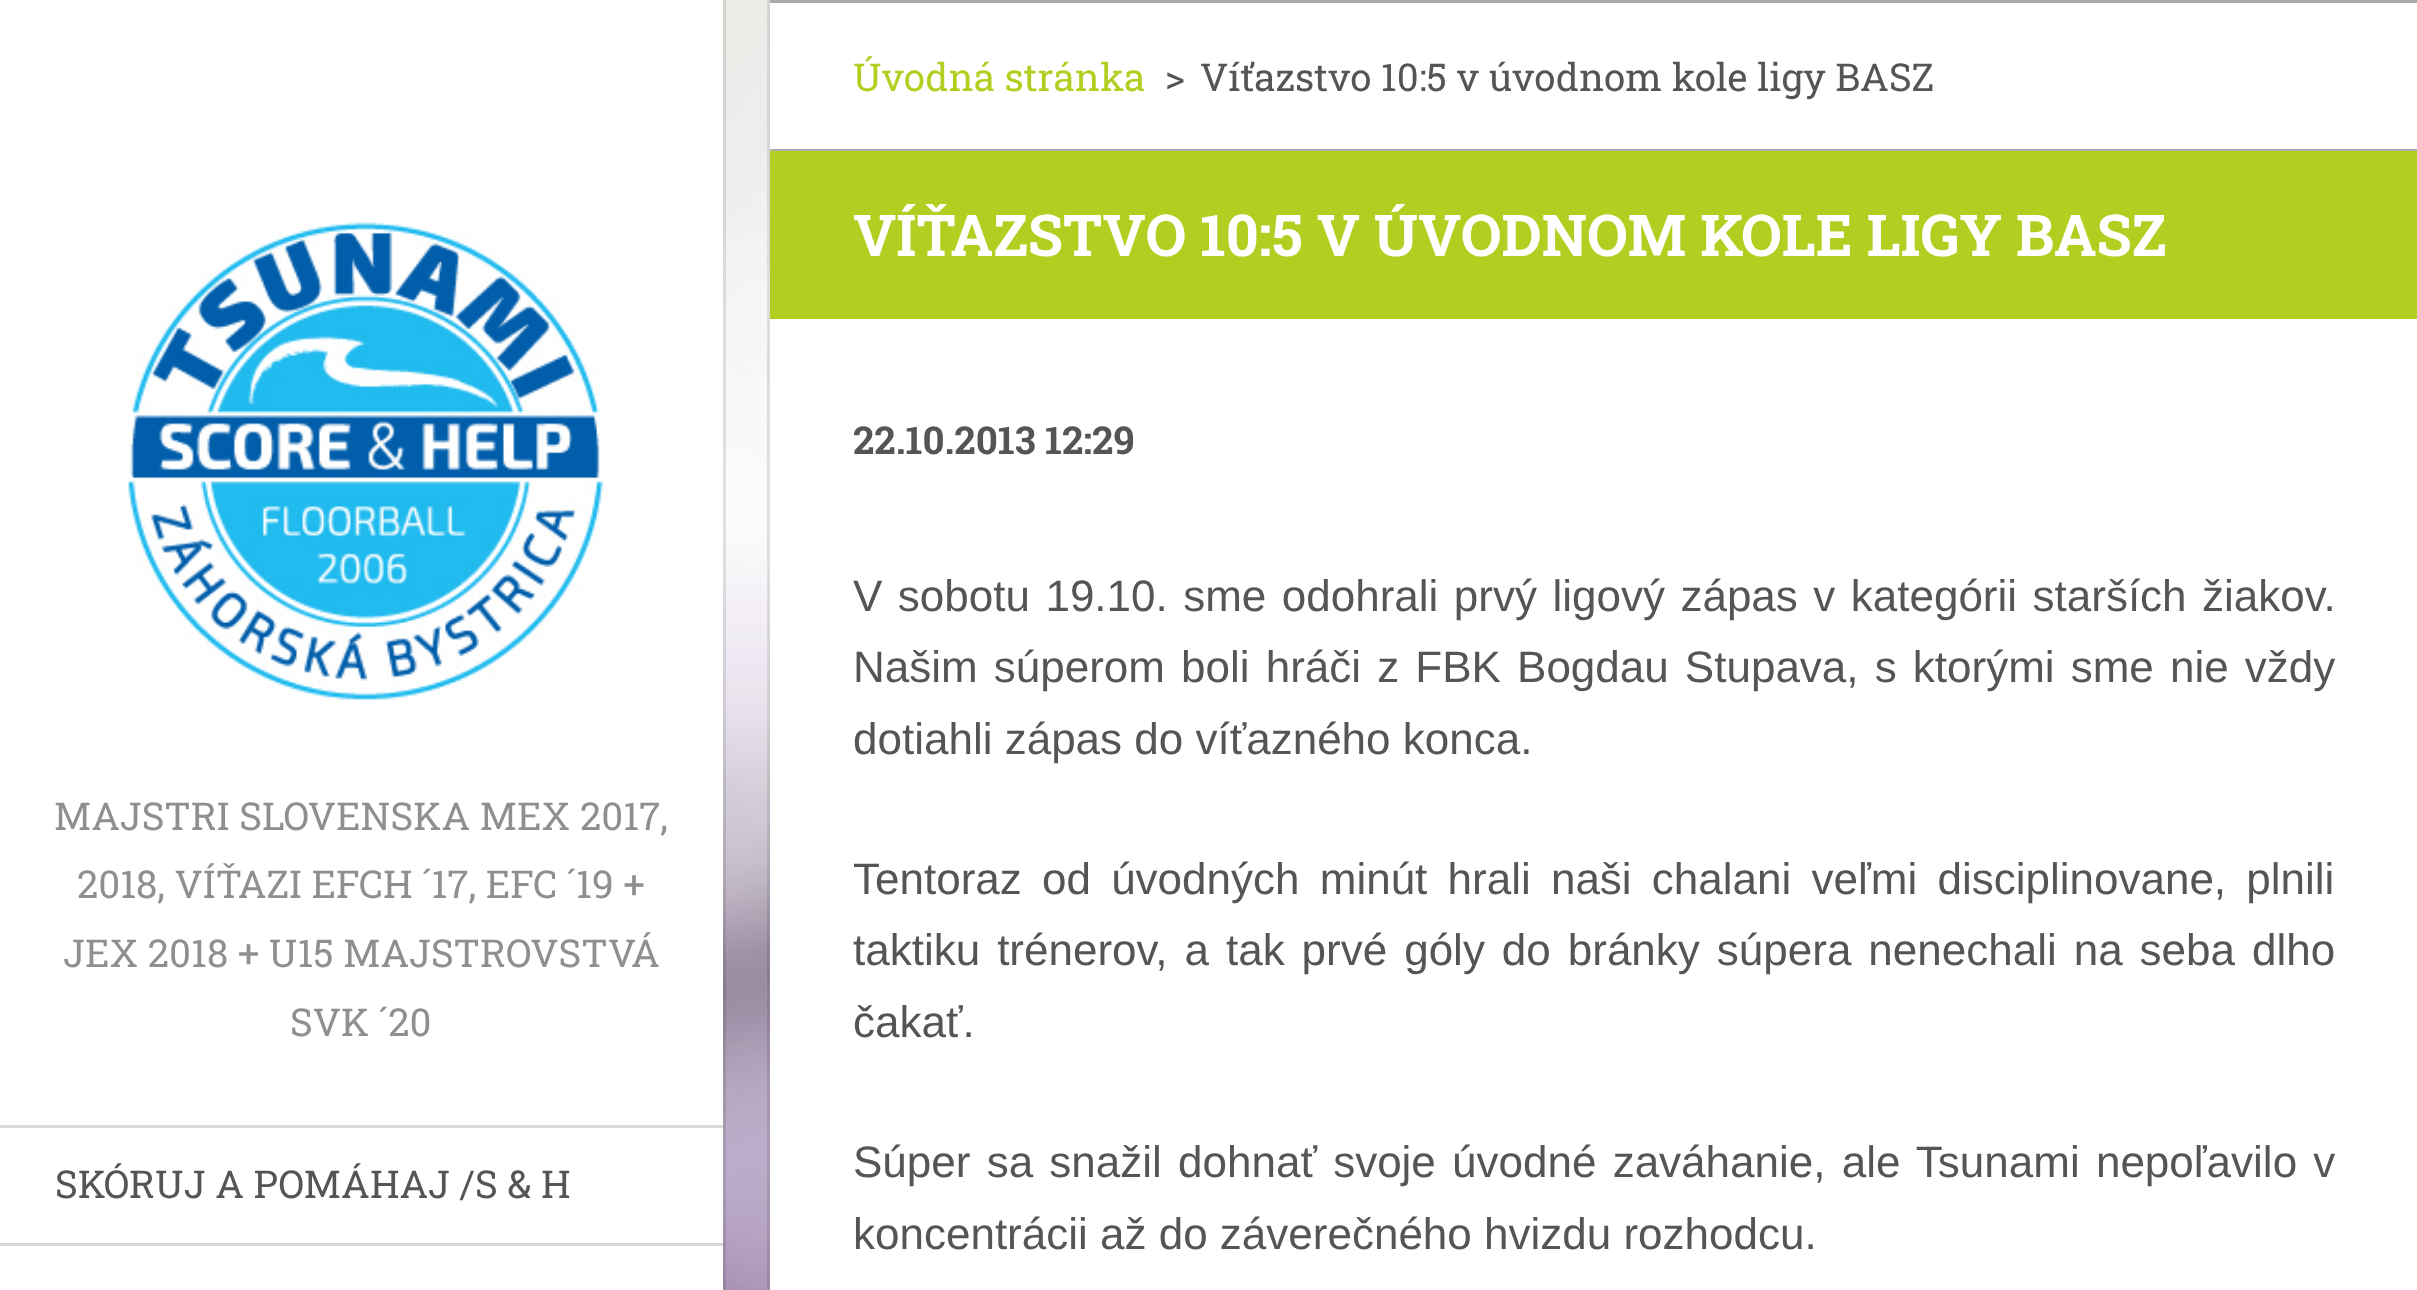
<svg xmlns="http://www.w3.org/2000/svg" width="2417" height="1290">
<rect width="100%" height="100%" fill="#fff"/>
<image x="723" y="0" width="47" height="1290" href="media/1.png"/>
<rect x="-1.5" y="-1.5" width="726" height="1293" fill="none" stroke="#0000001a" stroke-width="3"/>
<image x="123" y="222" width="481" height="478" href="media/2.png"/>
<text x="54" y="830" style="font-family:Roboto Slab;font-size:38.5px;fill:#8f8f8f">MAJSTRI SLOVENSKA MEX 2017,</text>
<text x="77" y="898" style="font-family:Roboto Slab;font-size:38.5px;fill:#8f8f8f">2018, VÍŤAZI EFCH ´17, EFC ´19 +</text>
<text x="63" y="967" style="font-family:Roboto Slab;font-size:38.5px;fill:#8f8f8f">JEX 2018 + U15 MAJSTROVSTVÁ</text>
<text x="290" y="1036" style="font-family:Roboto Slab;font-size:38.5px;fill:#8f8f8f">SVK ´20</text>
<rect y="1125" width="723" height="3" fill="#d9d9d9"/>
<text x="55" y="1198" style="font-family:Roboto Slab;font-size:38.5px;fill:#555">SKÓRUJ A POMÁHAJ /S &amp; H</text>
<rect y="1243" width="723" height="3" fill="#d9d9d9"/>
<rect x="770" width="1647" height="3" fill="#acacac"/>
<rect x="768.5" y="-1.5" width="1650" height="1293" fill="none" stroke="#0000001a" stroke-width="3"/>
<text x="853" y="91" style="font-family:Roboto Slab;font-size:38.5px;fill:#b3ce20">Úvodná stránka</text>
<text x="1165" y="91" style="font-family:Roboto Slab;font-size:38.5px;fill:#555">&gt;</text>
<text x="1200" y="91" style="font-family:Roboto Slab;font-size:38.5px;fill:#555">Víťazstvo 10:5 v úvodnom kole ligy BASZ</text>
<rect x="770" y="149" width="1647" height="2" fill="#acacac"/>
<rect x="770" y="151" width="1647" height="168" fill="#b3ce20"/>
<text x="853" y="256" style="font-family:Roboto Slab;font-size:57.75px;font-weight:bold;fill:#fff">VÍŤAZSTVO 10:5 V ÚVODNOM KOLE LIGY BASZ</text>
<text x="853" y="454" style="font-family:Roboto Slab;font-size:38.5px;font-weight:bold;fill:#555">22.10.2013 12:29</text>
<text x="853" y="611" word-spacing="3.25" style="font-family:Liberation Sans;font-size:44px;fill:#555">V sobotu 19.10. sme odohrali prvý ligový zápas v kategórii starších žiakov.</text>
<text x="853" y="682" word-spacing="3.9" style="font-family:Liberation Sans;font-size:44px;fill:#555">Našim súperom boli hráči z FBK Bogdau Stupava, s ktorými sme nie vždy</text>
<text x="853" y="754" style="font-family:Liberation Sans;font-size:44px;fill:#555">dotiahli zápas do víťazného konca.</text>
<text x="853" y="894" word-spacing="8" style="font-family:Liberation Sans;font-size:44px;fill:#555">Tentoraz od úvodných minút hrali naši chalani veľmi disciplinovane, plnili</text>
<text x="853" y="965" word-spacing="4.75" style="font-family:Liberation Sans;font-size:44px;fill:#555">taktiku trénerov, a tak prvé góly do bránky súpera nenechali na seba dlho</text>
<text x="853" y="1037" style="font-family:Liberation Sans;font-size:44px;fill:#555">čakať.</text>
<text x="853" y="1177" word-spacing="4" style="font-family:Liberation Sans;font-size:44px;fill:#555">Súper sa snažil dohnať svoje úvodné zaváhanie, ale Tsunami nepoľavilo v</text>
<text x="853" y="1249" style="font-family:Liberation Sans;font-size:44px;fill:#555">koncentrácii až do záverečného hvizdu rozhodcu.</text>
</svg>
